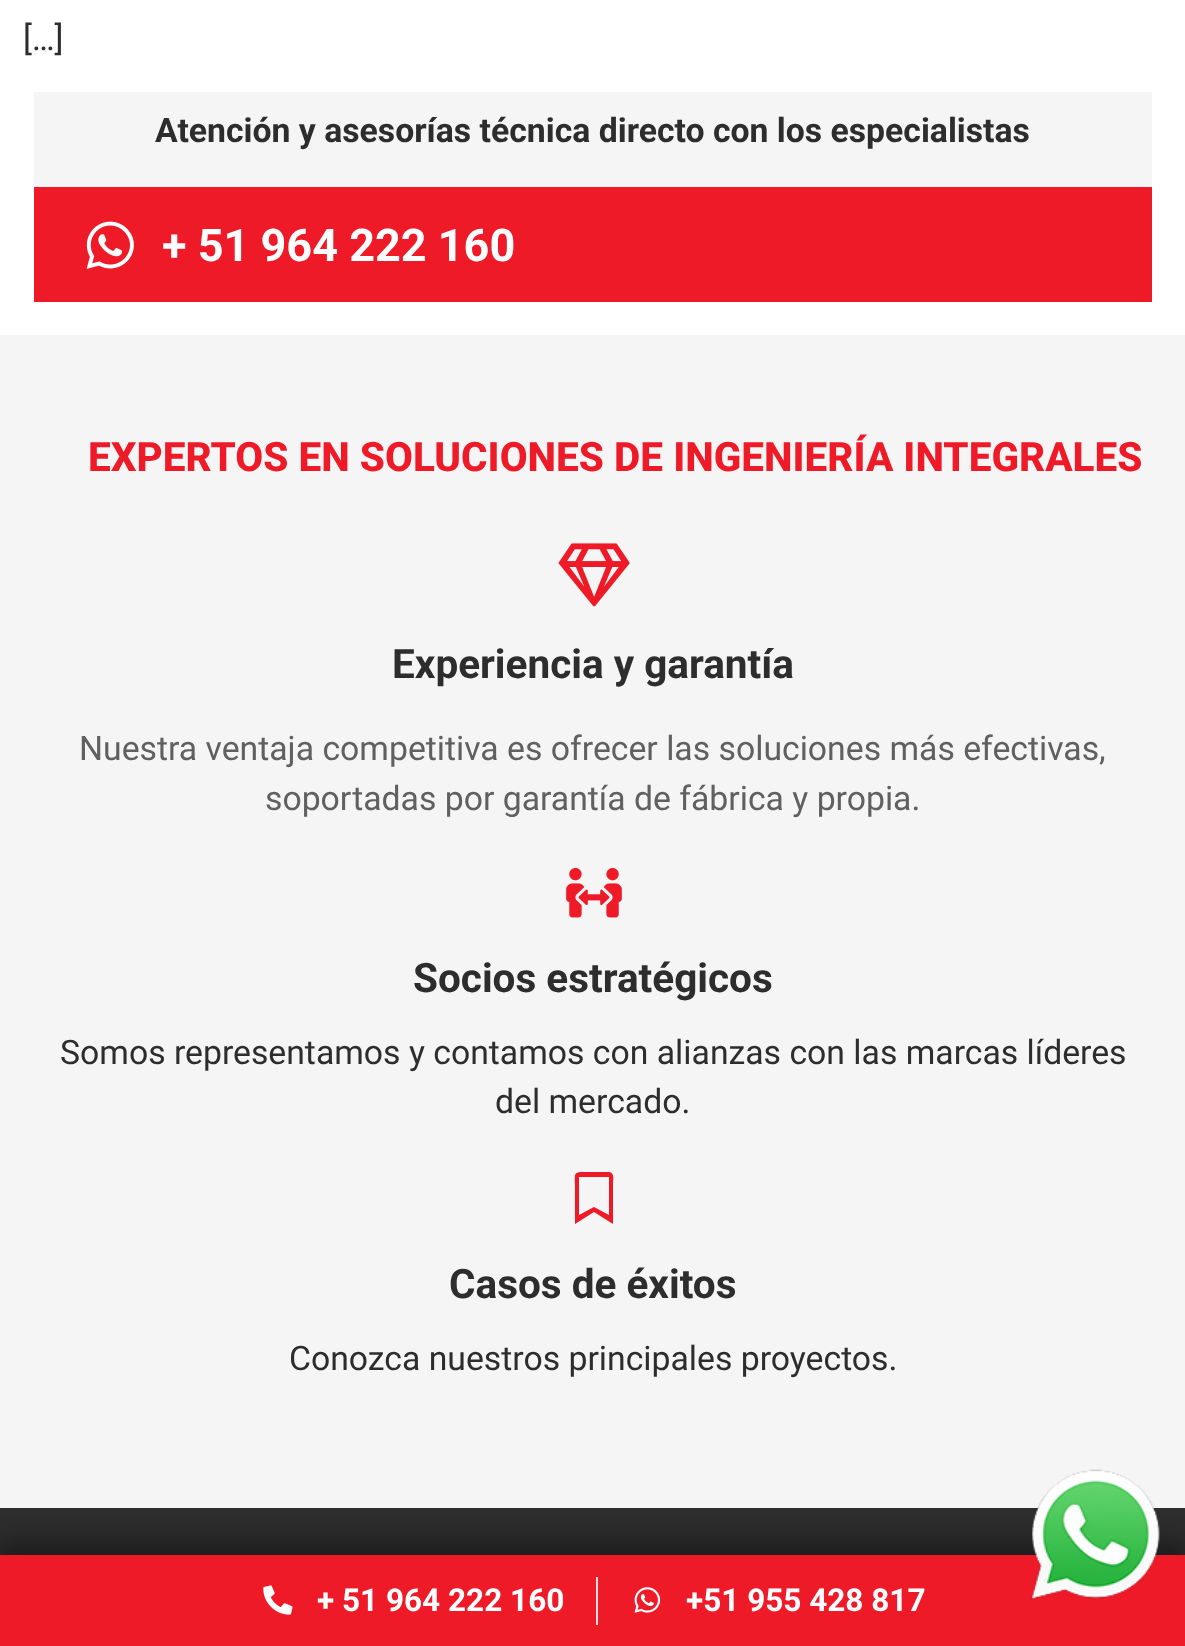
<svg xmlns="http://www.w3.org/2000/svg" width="1185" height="1646">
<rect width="100%" height="100%" fill="#fff"/>
<text x="23" y="50" style="font-family:Roboto;font-size:33.75px;fill:#2d2d2d">[…]</text>
<rect x="34" y="92" width="1118" height="95" fill="#f5f5f5"/>
<text x="155" y="142" style="font-family:Roboto;font-size:33.75px;font-weight:bold;fill:#2d2d2d">Atención y asesorías técnica directo con los especialistas</text>
<rect x="34" y="187" width="1118" height="115" fill="#ee1a28"/>
<image x="86" y="221" width="48" height="48" href="media/1.png"/>
<text x="162" y="261" style="font-family:Roboto;font-size:45px;font-weight:bold;fill:#fff">+ 51 964 222 160</text>
<rect y="335" width="1185" height="1173" fill="#f5f5f5"/>
<text x="88" y="471" style="font-family:Roboto;font-size:40.5px;font-weight:800;fill:#ee1a28">EXPERTOS EN SOLUCIONES DE INGENIERÍA INTEGRALES</text>
<image x="558" y="543" width="72" height="64" href="media/2.png"/>
<text x="392" y="678" style="font-family:Roboto;font-size:40.5px;font-weight:bold;fill:#2d2d2d">Experiencia y garantía</text>
<text x="79" y="760" style="font-family:Roboto;font-size:33.75px;fill:#606060">Nuestra ventaja competitiva es ofrecer las soluciones más efectivas,</text>
<text x="265" y="810" style="font-family:Roboto;font-size:33.75px;fill:#606060">soportadas por garantía de fábrica y propia.</text>
<image x="566" y="867" width="56" height="51" href="media/3.png"/>
<text x="413" y="992" style="font-family:Roboto;font-size:40.5px;font-weight:bold;fill:#2d2d2d">Socios estratégicos</text>
<text x="60" y="1064" style="font-family:Roboto;font-size:33.75px;fill:#2d2d2d">Somos representamos y contamos con alianzas con las marcas líderes</text>
<text x="495" y="1113" style="font-family:Roboto;font-size:33.75px;fill:#2d2d2d">del mercado.</text>
<path d="M609 1172c6 0 4 9 4 13v39l-19-12l-19 12v-39c0-11-2-13 9-13zm0 43v-38h-1h-28h-1v38l15-8z" fill="#ee1a28"/>
<text x="449" y="1298" style="font-family:Roboto;font-size:40.5px;font-weight:bold;fill:#2d2d2d">Casos de éxitos</text>
<text x="289" y="1370" style="font-family:Roboto;font-size:33.75px;fill:#2d2d2d">Conozca nuestros principales proyectos.</text>
<rect y="1508" width="1185" height="47" fill="#2d2d2d"/>
<rect x="-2" y="1541" width="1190" height="97" fill="#00000059" filter="blur(11px)"/>
<rect y="1555" width="1185" height="91" fill="#ee1a28"/>
<image x="263" y="1585" width="30" height="30" href="media/4.png"/>
<text x="317" y="1611" style="font-family:Roboto;font-size:31.5px;font-weight:bold;fill:#fff">+ 51 964 222 160</text>
<rect x="596" y="1577" width="2" height="48" fill="#ddd"/>
<image x="634" y="1587" width="27" height="26" href="media/5.png"/>
<text x="686" y="1611" style="font-family:Roboto;font-size:31.5px;font-weight:bold;fill:#fff">+51 955 428 817</text>
<image x="1030" y="1469" width="130" height="131" href="media/6.png"/>
</svg>
